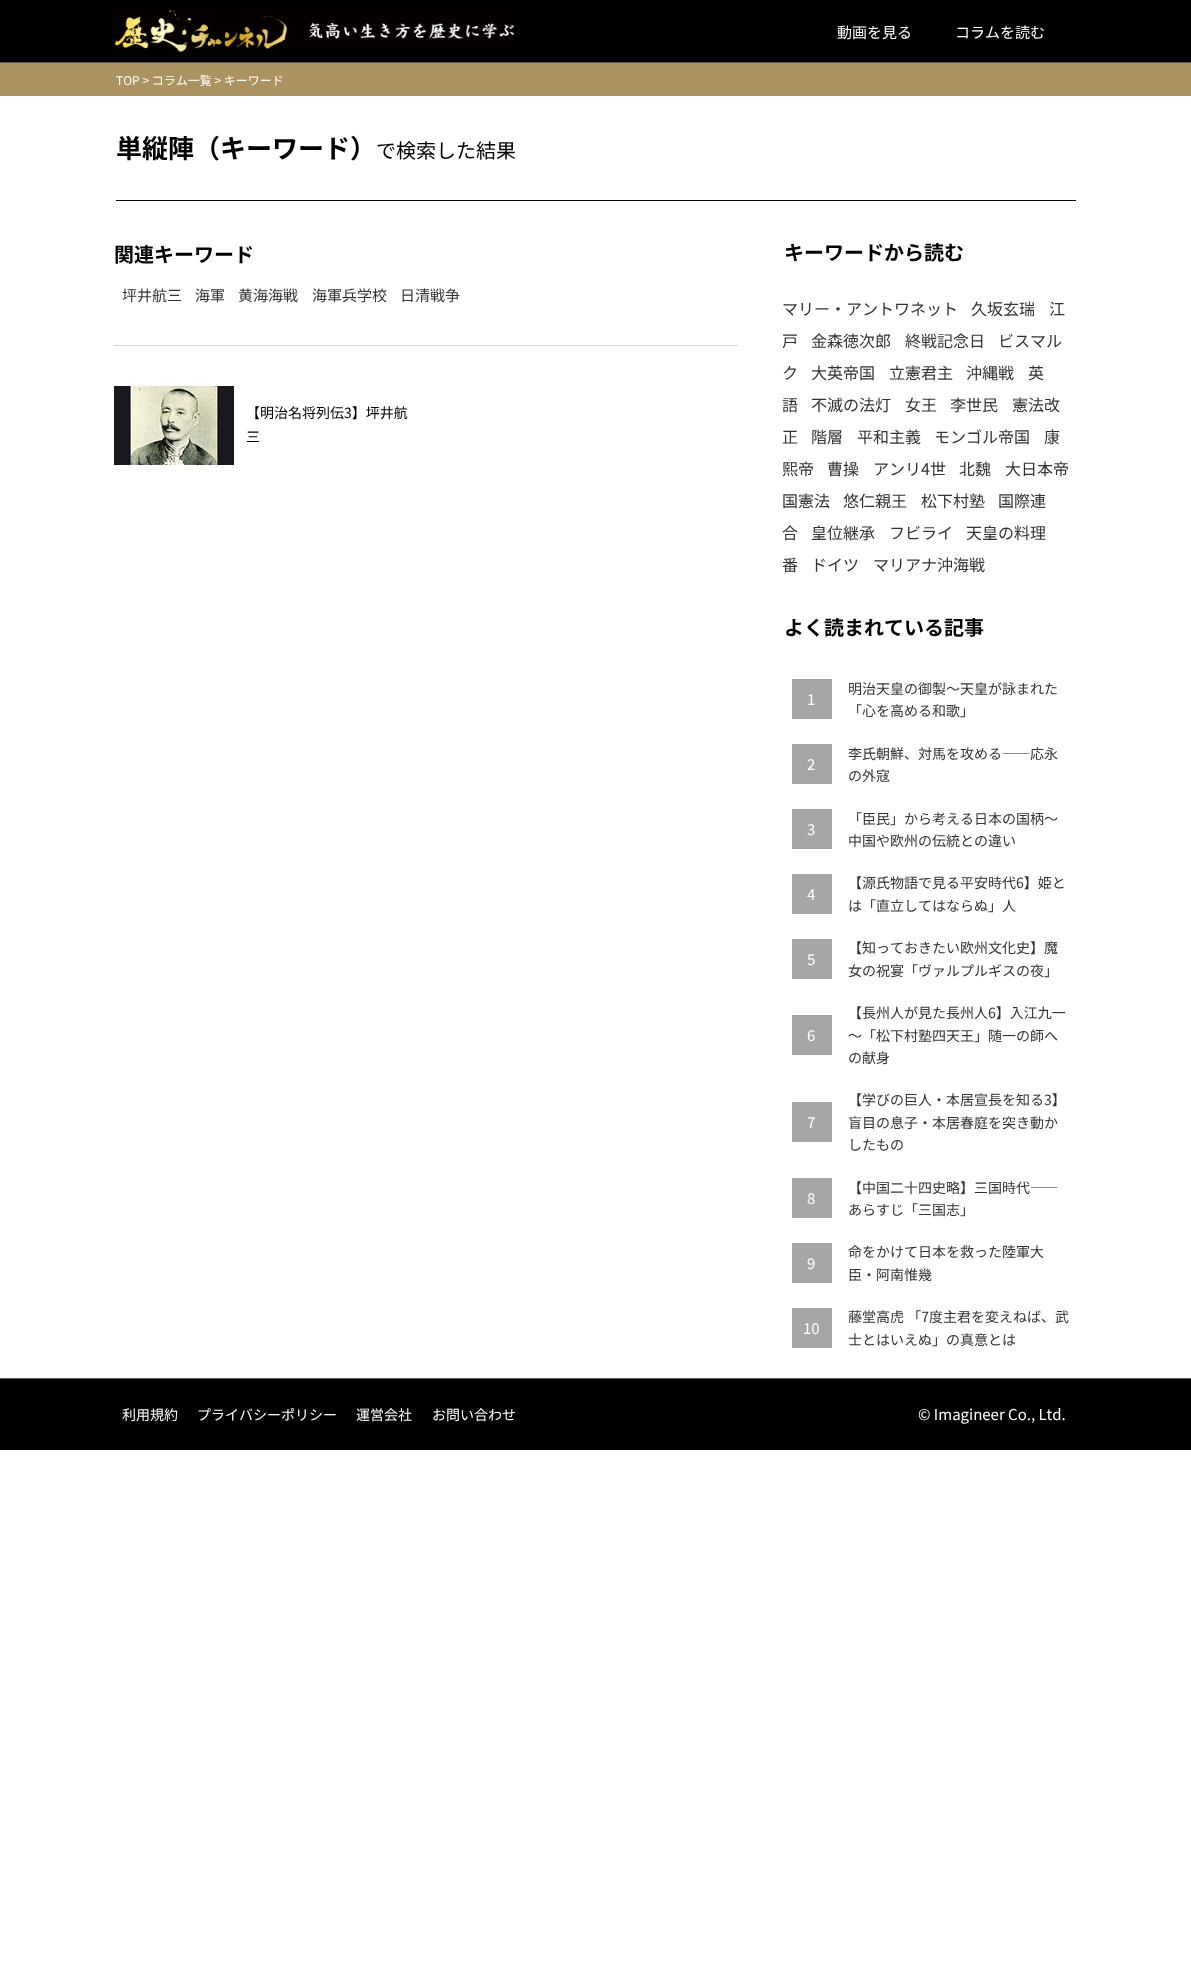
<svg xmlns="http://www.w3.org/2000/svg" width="1191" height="1982">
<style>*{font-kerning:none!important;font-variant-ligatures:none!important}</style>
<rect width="100%" height="100%" fill="#fff"/>
<rect width="1191" height="62" fill="#000"/>
<rect y="62" width="1191" height="1" fill="#595959"/>
<image x="114" y="9" width="400" height="44" href="media/1.png"/>
<text x="837" y="38" style="font-family:Noto Sans JP;font-size:15px;fill:#fff">動画を見る</text>
<text x="955" y="38" style="font-family:Noto Sans JP;font-size:15px;fill:#fff">コラムを読む</text>
<rect y="63" width="1191" height="33" fill="#aa935e"/>
<text x="116" y="85" style="font-family:Noto Sans JP;font-size:12px;fill:#fff">TOP &gt; コラム一覧 &gt; キーワード</text>
<rect x="116" y="200" width="960" height="1" fill="#000"/>
<text x="116" y="158" style="font-family:Noto Sans JP;font-size:26px;font-weight:bold;fill:#000">単縦陣（キーワード）</text>
<text x="376" y="158" style="font-family:Noto Sans JP;font-size:20px;fill:#000">で検索した結果</text>
<rect x="114" y="345" width="624" height="1" fill="#d9d9d9"/>
<text x="114" y="262" style="font-family:Noto Sans JP;font-size:20px;font-weight:bold;fill:#000">関連キーワード</text>
<text x="122" y="301" style="font-family:Noto Sans JP;font-size:15px;fill:#333">坪井航三</text>
<text x="195" y="301" style="font-family:Noto Sans JP;font-size:15px;fill:#333">海軍</text>
<text x="238" y="301" style="font-family:Noto Sans JP;font-size:15px;fill:#333">黄海海戦</text>
<text x="312" y="301" style="font-family:Noto Sans JP;font-size:15px;fill:#333">海軍兵学校</text>
<text x="400" y="301" style="font-family:Noto Sans JP;font-size:15px;fill:#333">日清戦争</text>
<image x="114" y="386" width="120" height="79" href="media/2.png"/>
<text x="246" y="418" style="font-family:Noto Sans JP;font-size:14px;fill:#000">【明治名将列伝3】坪井航</text>
<text x="246" y="442" style="font-family:Noto Sans JP;font-size:14px;fill:#000">三</text>
<text x="784" y="260" style="font-family:Noto Sans JP;font-size:20px;font-weight:bold;fill:#000">キーワードから読む</text>
<text x="782" y="315" style="font-family:Noto Sans JP;font-size:16px;fill:#333">マリー・アントワネット</text>
<text x="971" y="315" style="font-family:Noto Sans JP;font-size:16px;fill:#333">久坂玄瑞</text>
<text x="1049" y="315" style="font-family:Noto Sans JP;font-size:16px;fill:#333">江</text>
<text x="782" y="347" style="font-family:Noto Sans JP;font-size:16px;fill:#333">戸</text>
<text x="811" y="347" style="font-family:Noto Sans JP;font-size:16px;fill:#333">金森徳次郎</text>
<text x="905" y="347" style="font-family:Noto Sans JP;font-size:16px;fill:#333">終戦記念日</text>
<text x="998" y="347" style="font-family:Noto Sans JP;font-size:16px;fill:#333">ビスマル</text>
<text x="782" y="379" style="font-family:Noto Sans JP;font-size:16px;fill:#333">ク</text>
<text x="811" y="379" style="font-family:Noto Sans JP;font-size:16px;fill:#333">大英帝国</text>
<text x="889" y="379" style="font-family:Noto Sans JP;font-size:16px;fill:#333">立憲君主</text>
<text x="966" y="379" style="font-family:Noto Sans JP;font-size:16px;fill:#333">沖縄戦</text>
<text x="1028" y="379" style="font-family:Noto Sans JP;font-size:16px;fill:#333">英</text>
<text x="782" y="411" style="font-family:Noto Sans JP;font-size:16px;fill:#333">語</text>
<text x="811" y="411" style="font-family:Noto Sans JP;font-size:16px;fill:#333">不滅の法灯</text>
<text x="905" y="411" style="font-family:Noto Sans JP;font-size:16px;fill:#333">女王</text>
<text x="950" y="411" style="font-family:Noto Sans JP;font-size:16px;fill:#333">李世民</text>
<text x="1012" y="411" style="font-family:Noto Sans JP;font-size:16px;fill:#333">憲法改</text>
<text x="782" y="443" style="font-family:Noto Sans JP;font-size:16px;fill:#333">正</text>
<text x="811" y="443" style="font-family:Noto Sans JP;font-size:16px;fill:#333">階層</text>
<text x="857" y="443" style="font-family:Noto Sans JP;font-size:16px;fill:#333">平和主義</text>
<text x="934" y="443" style="font-family:Noto Sans JP;font-size:16px;fill:#333">モンゴル帝国</text>
<text x="1044" y="443" style="font-family:Noto Sans JP;font-size:16px;fill:#333">康</text>
<text x="782" y="475" style="font-family:Noto Sans JP;font-size:16px;fill:#333">熙帝</text>
<text x="827" y="475" style="font-family:Noto Sans JP;font-size:16px;fill:#333">曹操</text>
<text x="873" y="475" style="font-family:Noto Sans JP;font-size:16px;fill:#333">アンリ4世</text>
<text x="959" y="475" style="font-family:Noto Sans JP;font-size:16px;fill:#333">北魏</text>
<text x="1005" y="475" style="font-family:Noto Sans JP;font-size:16px;fill:#333">大日本帝</text>
<text x="782" y="507" style="font-family:Noto Sans JP;font-size:16px;fill:#333">国憲法</text>
<text x="843" y="507" style="font-family:Noto Sans JP;font-size:16px;fill:#333">悠仁親王</text>
<text x="921" y="507" style="font-family:Noto Sans JP;font-size:16px;fill:#333">松下村塾</text>
<text x="998" y="507" style="font-family:Noto Sans JP;font-size:16px;fill:#333">国際連</text>
<text x="782" y="539" style="font-family:Noto Sans JP;font-size:16px;fill:#333">合</text>
<text x="811" y="539" style="font-family:Noto Sans JP;font-size:16px;fill:#333">皇位継承</text>
<text x="889" y="539" style="font-family:Noto Sans JP;font-size:16px;fill:#333">フビライ</text>
<text x="966" y="539" style="font-family:Noto Sans JP;font-size:16px;fill:#333">天皇の料理</text>
<text x="782" y="571" style="font-family:Noto Sans JP;font-size:16px;fill:#333">番</text>
<text x="811" y="571" style="font-family:Noto Sans JP;font-size:16px;fill:#333">ドイツ</text>
<text x="873" y="571" style="font-family:Noto Sans JP;font-size:16px;fill:#333">マリアナ沖海戦</text>
<text x="784" y="635" style="font-family:Noto Sans JP;font-size:20px;font-weight:bold;fill:#000">よく読まれている記事</text>
<rect x="792" y="679" width="40" height="40" fill="#a6a6a6"/>
<text x="807" y="705" style="font-family:Noto Sans JP;font-size:15px;fill:#fff">1</text>
<text x="848" y="694" style="font-family:Noto Sans JP;font-size:14px;fill:#333">明治天皇の御製～天皇が詠まれた</text>
<text x="848" y="716" style="font-family:Noto Sans JP;font-size:14px;fill:#333">「心を高める和歌」</text>
<rect x="792" y="744" width="40" height="40" fill="#a6a6a6"/>
<text x="807" y="770" style="font-family:Noto Sans JP;font-size:15px;fill:#fff">2</text>
<text x="848" y="759" style="font-family:Noto Sans JP;font-size:14px;fill:#333">李氏朝鮮、対馬を攻める――応永</text>
<text x="848" y="781" style="font-family:Noto Sans JP;font-size:14px;fill:#333">の外寇</text>
<rect x="792" y="809" width="40" height="40" fill="#a6a6a6"/>
<text x="807" y="835" style="font-family:Noto Sans JP;font-size:15px;fill:#fff">3</text>
<text x="848" y="824" style="font-family:Noto Sans JP;font-size:14px;fill:#333">「臣民」から考える日本の国柄～</text>
<text x="848" y="846" style="font-family:Noto Sans JP;font-size:14px;fill:#333">中国や欧州の伝統との違い</text>
<rect x="792" y="874" width="40" height="40" fill="#a6a6a6"/>
<text x="807" y="900" style="font-family:Noto Sans JP;font-size:15px;fill:#fff">4</text>
<text x="848" y="888" style="font-family:Noto Sans JP;font-size:14px;fill:#333">【源氏物語で見る平安時代6】姫と</text>
<text x="848" y="911" style="font-family:Noto Sans JP;font-size:14px;fill:#333">は「直立してはならぬ」人</text>
<rect x="792" y="939" width="40" height="40" fill="#a6a6a6"/>
<text x="807" y="965" style="font-family:Noto Sans JP;font-size:15px;fill:#fff">5</text>
<text x="848" y="953" style="font-family:Noto Sans JP;font-size:14px;fill:#333">【知っておきたい欧州文化史】魔</text>
<text x="848" y="976" style="font-family:Noto Sans JP;font-size:14px;fill:#333">女の祝宴「ヴァルプルギスの夜」</text>
<rect x="792" y="1015" width="40" height="40" fill="#a6a6a6"/>
<text x="807" y="1041" style="font-family:Noto Sans JP;font-size:15px;fill:#fff">6</text>
<text x="848" y="1018" style="font-family:Noto Sans JP;font-size:14px;fill:#333">【長州人が見た長州人6】入江九一</text>
<text x="848" y="1041" style="font-family:Noto Sans JP;font-size:14px;fill:#333">～「松下村塾四天王」随一の師へ</text>
<text x="848" y="1063" style="font-family:Noto Sans JP;font-size:14px;fill:#333">の献身</text>
<rect x="792" y="1102" width="40" height="40" fill="#a6a6a6"/>
<text x="807" y="1128" style="font-family:Noto Sans JP;font-size:15px;fill:#fff">7</text>
<text x="848" y="1105" style="font-family:Noto Sans JP;font-size:14px;fill:#333">【学びの巨人・本居宣長を知る3】</text>
<text x="848" y="1128" style="font-family:Noto Sans JP;font-size:14px;fill:#333">盲目の息子・本居春庭を突き動か</text>
<text x="848" y="1150" style="font-family:Noto Sans JP;font-size:14px;fill:#333">したもの</text>
<rect x="792" y="1178" width="40" height="40" fill="#a6a6a6"/>
<text x="807" y="1204" style="font-family:Noto Sans JP;font-size:15px;fill:#fff">8</text>
<text x="848" y="1193" style="font-family:Noto Sans JP;font-size:14px;fill:#333">【中国二十四史略】三国時代――</text>
<text x="848" y="1215" style="font-family:Noto Sans JP;font-size:14px;fill:#333">あらすじ「三国志」</text>
<rect x="792" y="1243" width="40" height="40" fill="#a6a6a6"/>
<text x="807" y="1269" style="font-family:Noto Sans JP;font-size:15px;fill:#fff">9</text>
<text x="848" y="1257" style="font-family:Noto Sans JP;font-size:14px;fill:#333">命をかけて日本を救った陸軍大</text>
<text x="848" y="1280" style="font-family:Noto Sans JP;font-size:14px;fill:#333">臣・阿南惟幾</text>
<rect x="792" y="1308" width="40" height="40" fill="#a6a6a6"/>
<text x="803" y="1334" style="font-family:Noto Sans JP;font-size:15px;fill:#fff">10</text>
<text x="848" y="1322" style="font-family:Noto Sans JP;font-size:14px;fill:#333">藤堂高虎 「7度主君を変えねば、武</text>
<text x="848" y="1345" style="font-family:Noto Sans JP;font-size:14px;fill:#333">士とはいえぬ」の真意とは</text>
<rect y="1379" width="1191" height="71" fill="#000"/>
<rect y="1378" width="1191" height="1" fill="#595959"/>
<text x="122" y="1420" style="font-family:Noto Sans JP;font-size:14px;fill:#fff">利用規約</text>
<text x="197" y="1420" style="font-family:Noto Sans JP;font-size:14px;fill:#fff">プライバシーポリシー</text>
<text x="356" y="1420" style="font-family:Noto Sans JP;font-size:14px;fill:#fff">運営会社</text>
<text x="432" y="1420" style="font-family:Noto Sans JP;font-size:14px;fill:#fff">お問い合わせ</text>
<text x="918" y="1420" style="font-family:Noto Sans JP;font-size:15px;fill:#fff">© Imagineer Co., Ltd.</text>
</svg>
